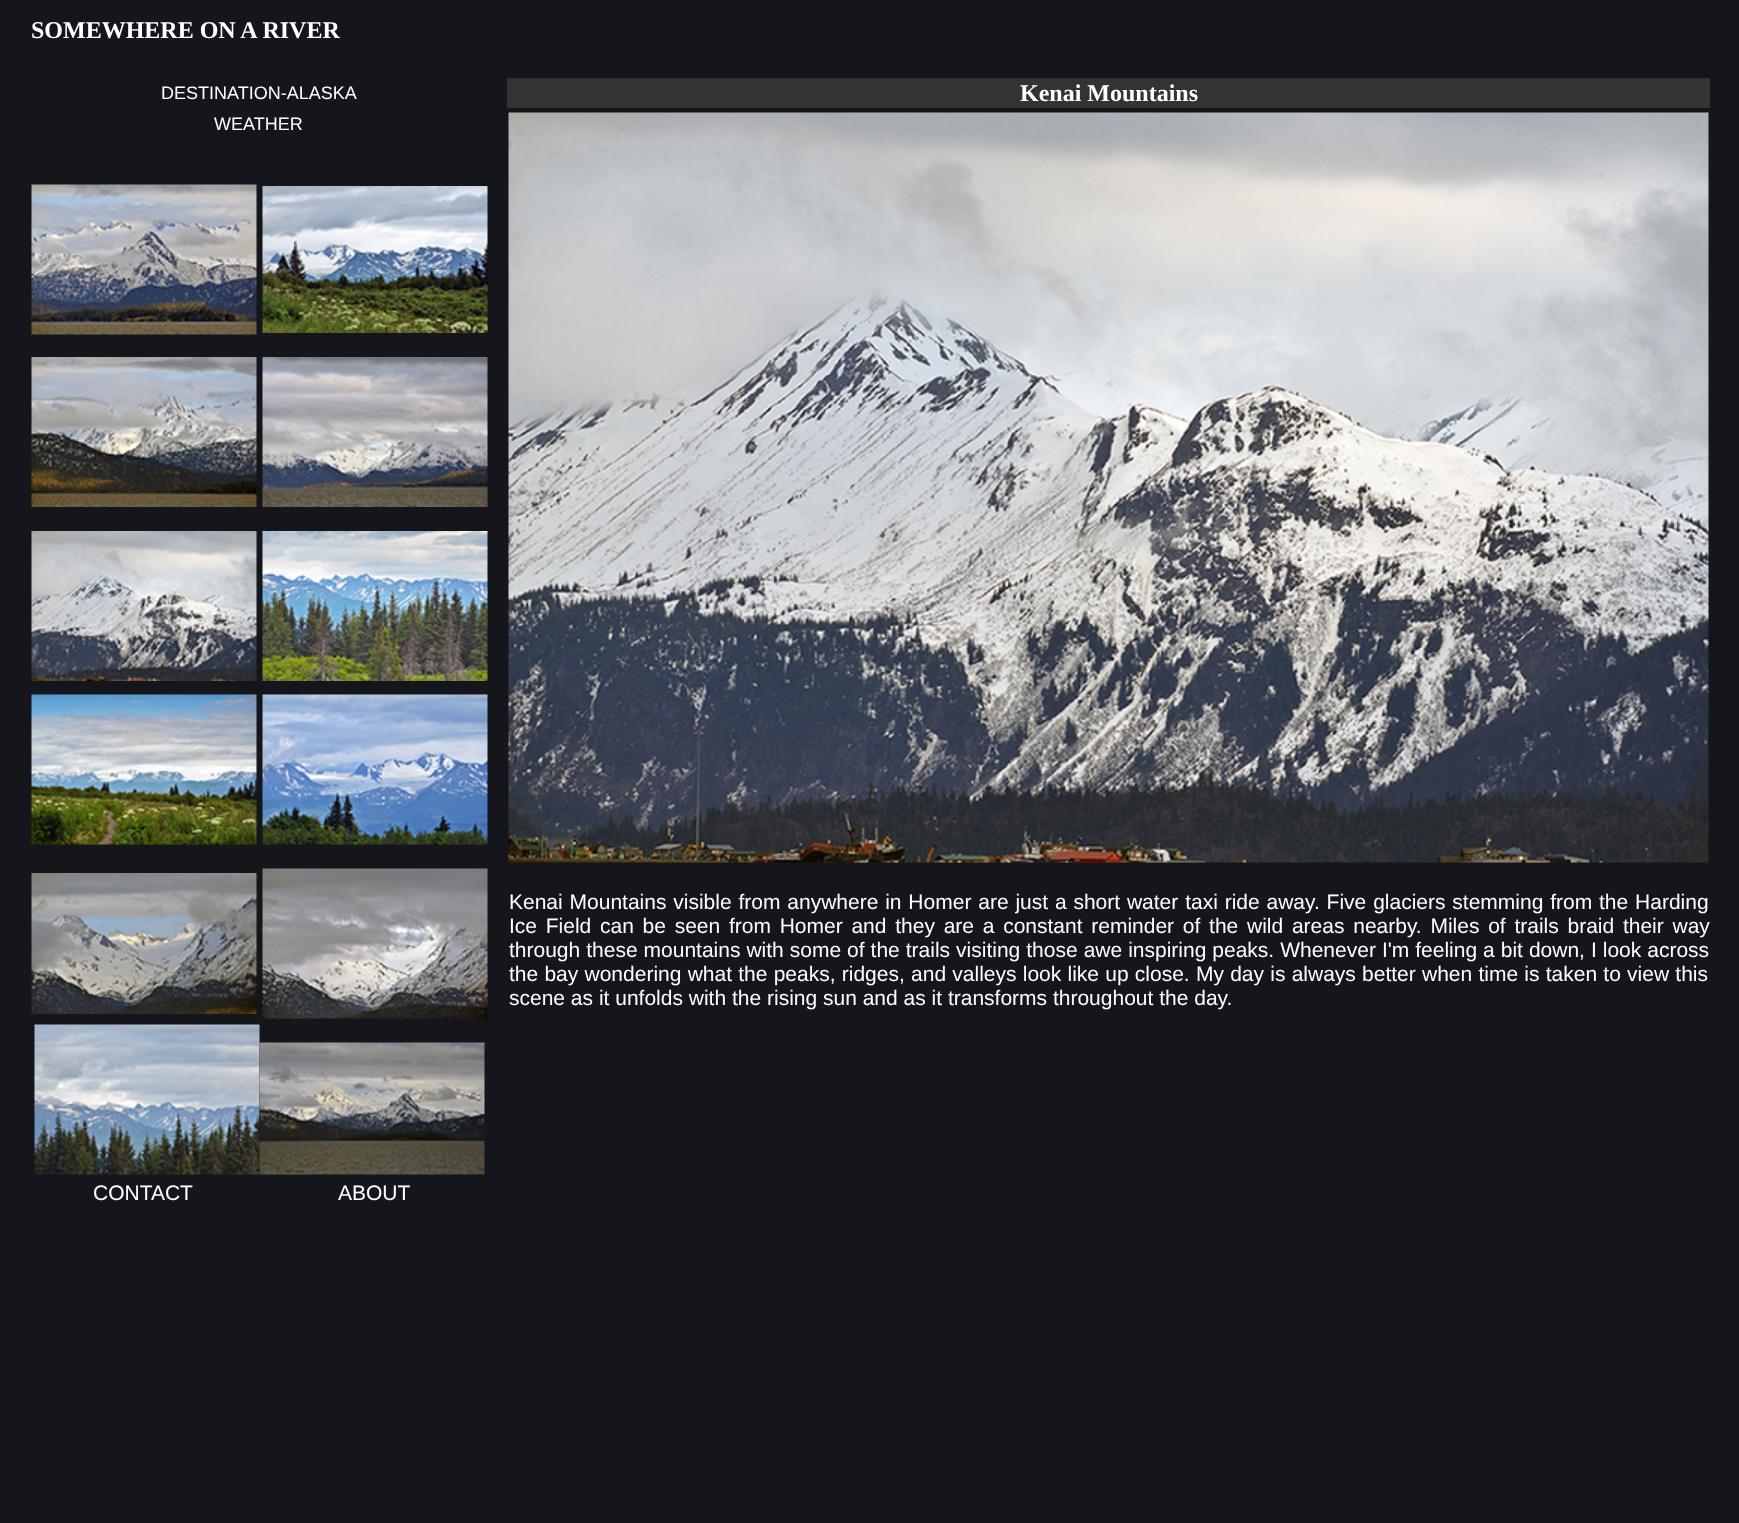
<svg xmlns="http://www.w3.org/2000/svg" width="1739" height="1523">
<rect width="100%" height="100%" fill="#15161b"/>
<text x="31" y="38" style="font-family:Liberation Serif;font-size:24px;font-weight:bold;fill:#fff">SOMEWHERE ON A RIVER</text>
<text x="161" y="99" style="font-family:Liberation Sans;font-size:18px;fill:#fff">DESTINATION-ALASKA</text>
<rect x="507" y="78" width="1203" height="30" fill="#333"/>
<text x="1020" y="101" style="font-family:Liberation Serif;font-size:24px;font-weight:bold;fill:#fff">Kenai Mountains</text>
<text x="214" y="130" style="font-family:Liberation Sans;font-size:18px;fill:#fff">WEATHER</text>
<image x="508" y="112" width="1201" height="751" href="media/1.png"/>
<image x="31" y="184" width="226" height="151" href="media/2.png"/>
<image x="262" y="186" width="226" height="147" href="media/3.png"/>
<image x="31" y="357" width="226" height="150" href="media/4.png"/>
<image x="262" y="357" width="226" height="150" href="media/5.png"/>
<image x="31" y="531" width="226" height="150" href="media/6.png"/>
<image x="262" y="531" width="226" height="150" href="media/7.png"/>
<image x="31" y="694" width="226" height="151" href="media/8.png"/>
<image x="262" y="694" width="226" height="151" href="media/9.png"/>
<image x="31" y="873" width="226" height="141" href="media/10.png"/>
<image x="262" y="868" width="226" height="151" href="media/11.png"/>
<text x="509" y="909" word-spacing="1" style="font-family:Liberation Sans;font-size:21px;fill:#fff">Kenai Mountains visible from anywhere in Homer are just a short water taxi ride away. Five glaciers stemming from the Harding</text>
<text x="509" y="933" word-spacing="2.9" style="font-family:Liberation Sans;font-size:21px;fill:#fff">Ice Field can be seen from Homer and they are a constant reminder of the wild areas nearby. Miles of trails braid their way</text>
<text x="509" y="957" word-spacing="0.15" style="font-family:Liberation Sans;font-size:21px;fill:#fff">through these mountains with some of the trails visiting those awe inspiring peaks. Whenever I'm feeling a bit down, I look across</text>
<text x="509" y="981" word-spacing="0.4" style="font-family:Liberation Sans;font-size:21px;fill:#fff">the bay wondering what the peaks, ridges, and valleys look like up close. My day is always better when time is taken to view this</text>
<text x="509" y="1005" style="font-family:Liberation Sans;font-size:21px;fill:#fff">scene as it unfolds with the rising sun and as it transforms throughout the day.</text>
<image x="34" y="1024" width="226" height="151" href="media/12.png"/>
<image x="259" y="1042" width="226" height="133" href="media/13.png"/>
<text x="93" y="1200" style="font-family:Liberation Sans;font-size:21px;fill:#fff">CONTACT</text>
<text x="338" y="1200" style="font-family:Liberation Sans;font-size:21px;fill:#fff">ABOUT</text>
</svg>
